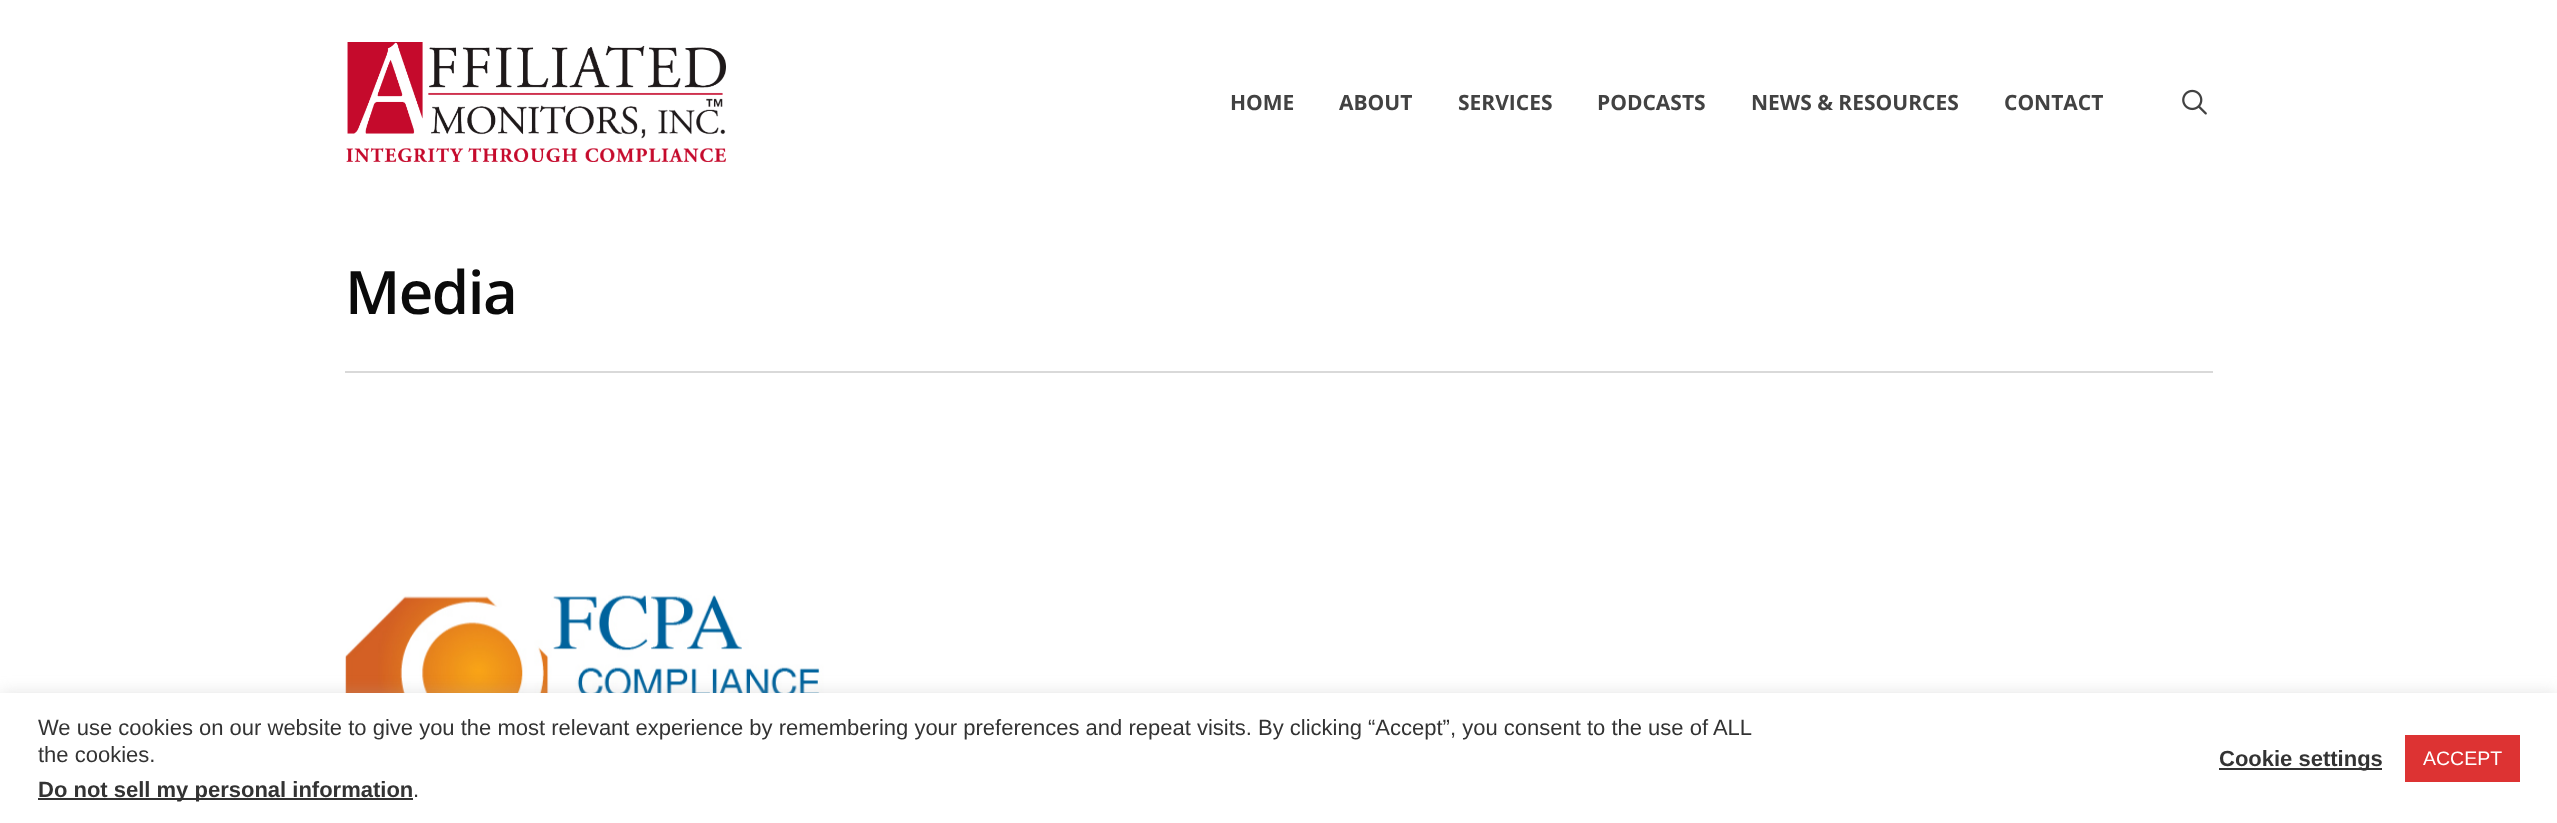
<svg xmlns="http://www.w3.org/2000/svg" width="2557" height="823">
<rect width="100%" height="100%" fill="#fff"/>
<image x="346" y="42" width="380" height="120" href="media/1.png"/>
<text x="1230" y="110" style="font-family:Open Sans;font-size:21px;font-weight:bold;fill:#424242">HOME</text>
<text x="1339" y="110" style="font-family:Open Sans;font-size:21px;font-weight:bold;fill:#424242">ABOUT</text>
<text x="1458" y="110" style="font-family:Open Sans;font-size:21px;font-weight:bold;fill:#424242">SERVICES</text>
<text x="1597" y="110" style="font-family:Open Sans;font-size:21px;font-weight:bold;fill:#424242">PODCASTS</text>
<text x="1751" y="110" style="font-family:Open Sans;font-size:21px;font-weight:bold;fill:#424242">NEWS &amp; RESOURCES</text>
<text x="2004" y="110" style="font-family:Open Sans;font-size:21px;font-weight:bold;fill:#424242">CONTACT</text>
<image x="2182" y="89" width="25" height="26" href="media/2.png"/>
<rect x="345" y="371" width="1868" height="2" fill="#d9d9d9"/>
<text x="345" y="314" style="font-family:Open Sans;font-size:60px;font-weight:600;letter-spacing:-1.5px;fill:#0a0a0a">Media</text>
<image x="345" y="595" width="546" height="98" href="media/3.png"/>
<rect y="692" width="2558" height="130" fill="#acabab4d" filter="blur(7.5px)"/>
<rect y="693" width="2557" height="130" fill="#fff"/>
<text x="38" y="735" style="font-family:Liberation Sans;font-size:22px;fill:#333">We use cookies on our website to give you the most relevant experience by remembering your preferences and repeat visits. By clicking “Accept”, you consent to the use of ALL</text>
<text x="38" y="762" style="font-family:Liberation Sans;font-size:22px;fill:#333">the cookies.</text>
<rect x="38" y="798" width="375" height="2" fill="#333"/>
<text x="38" y="797" style="font-family:Liberation Sans;font-size:22px;font-weight:bold;fill:#333">Do not sell my personal information</text>
<text x="413" y="797" style="font-family:Liberation Sans;font-size:22px;fill:#333">.</text>
<rect x="2219" y="768" width="163" height="2" fill="#333"/>
<text x="2219" y="766" style="font-family:Liberation Sans;font-size:22px;font-weight:bold;fill:#333">Cookie settings</text>
<rect x="2405" y="735" width="115" height="47" fill="#d33"/>
<text x="2423" y="765" style="font-family:Liberation Sans;font-size:19.5px;fill:#fff">ACCEPT</text>
</svg>
